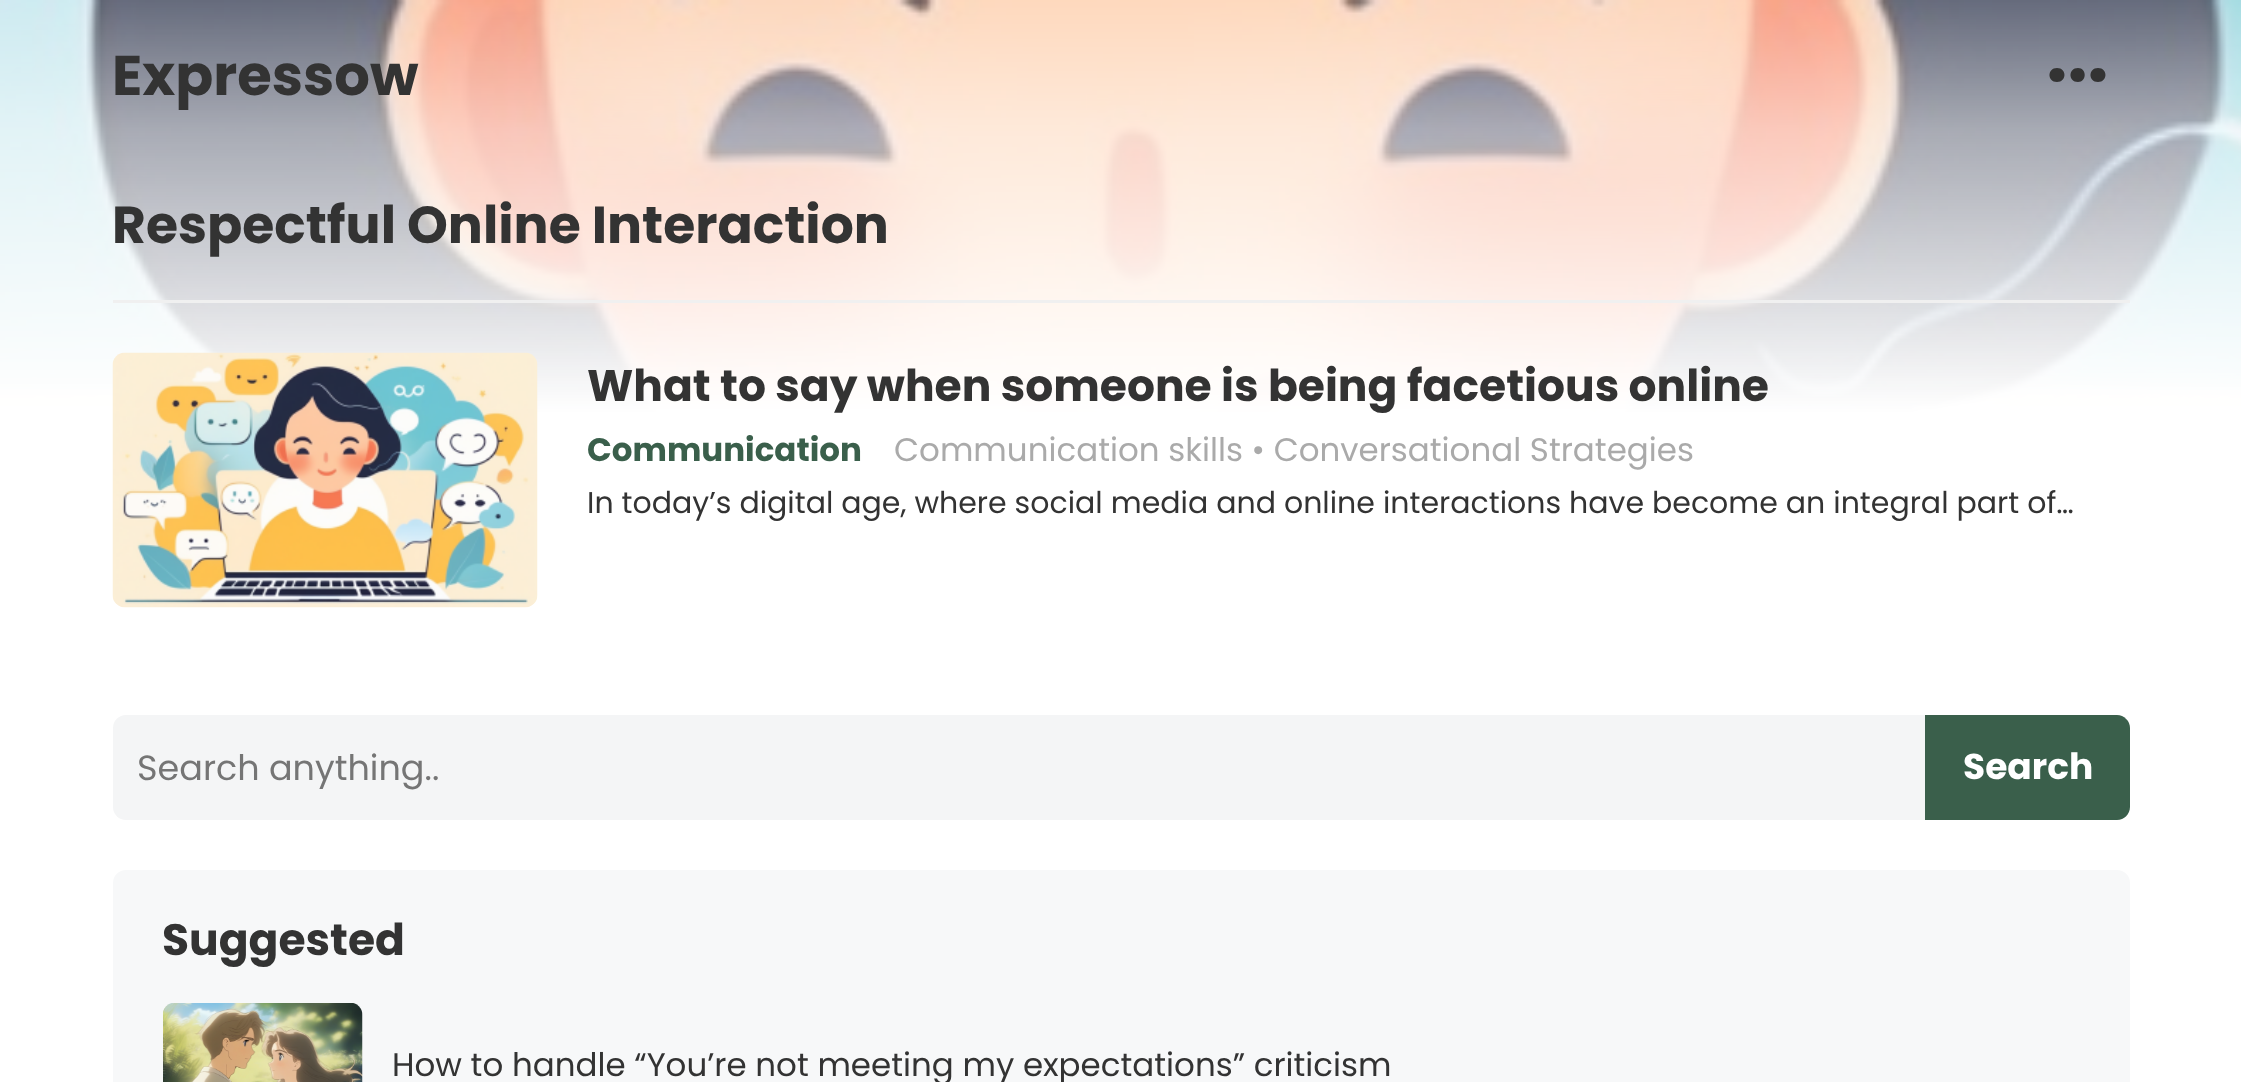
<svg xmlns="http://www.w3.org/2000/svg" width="2241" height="1082">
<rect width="100%" height="100%" fill="#fff"/>
<image x="0" y="0" width="2241" height="1070" href="media/1.png"/>
<text x="112" y="95" style="font-family:Poppins;font-size:56px;font-weight:bold;fill:#333">Expressow</text>
<path d="M2057 82c-10 0-10-14 0-14c10 0 10 14 0 14zm21 0c-10 0-10-14 0-14c9 0 9 14 0 14zm20 0c-10 0-10-14 0-14c10 0 10 14 0 14z" fill="#333" fill-rule="evenodd"/>
<rect x="113" y="300" width="2017" height="3" fill="#f0f0f0"/>
<text x="112" y="243" style="font-family:Poppins;font-size:52px;font-weight:bold;fill:#333">Respectful Online Interaction</text>
<image x="112" y="352" width="426" height="256" href="media/2.png"/>
<text x="587" y="401" style="font-family:Poppins;font-size:44px;font-weight:bold;fill:#333">What to say when someone is being facetious online</text>
<text x="587" y="461" style="font-family:Poppins;font-size:32.5px;font-weight:bold;fill:#3a5f4b">Communication</text>
<text x="894" y="461" style="font-family:Poppins;font-size:32.5px;fill:#aaa">Communication skills • Conversational Strategies</text>
<text x="587" y="513" style="font-family:Poppins;font-size:30px;fill:#333">In today’s digital age, where social media and online interactions have become an integral part of…</text>
<rect x="113" y="715" width="2017" height="105" rx="13" fill="#f4f5f6"/>
<text x="137" y="780" style="font-family:Poppins;font-size:35px;fill:#757575">Search anything..</text>
<path d="M1925 715h192c7 0 13 6 13 13v79c0 7-6 13-13 13h-192z" fill="#3a5f4b"/>
<text x="1963" y="779" style="font-family:Poppins;font-size:36px;font-weight:bold;fill:#fff">Search</text>
<rect x="113" y="870" width="2017" height="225" rx="13" fill="#f7f8f9"/>
<text x="162" y="955" style="font-family:Poppins;font-size:44px;font-weight:bold;fill:#333">Suggested</text>
<image x="163" y="1003" width="200" height="79" href="media/3.png"/>
<text x="392" y="1076" style="font-family:Poppins;font-size:32.5px;fill:#333">How to handle “You’re not meeting my expectations” criticism</text>
</svg>
